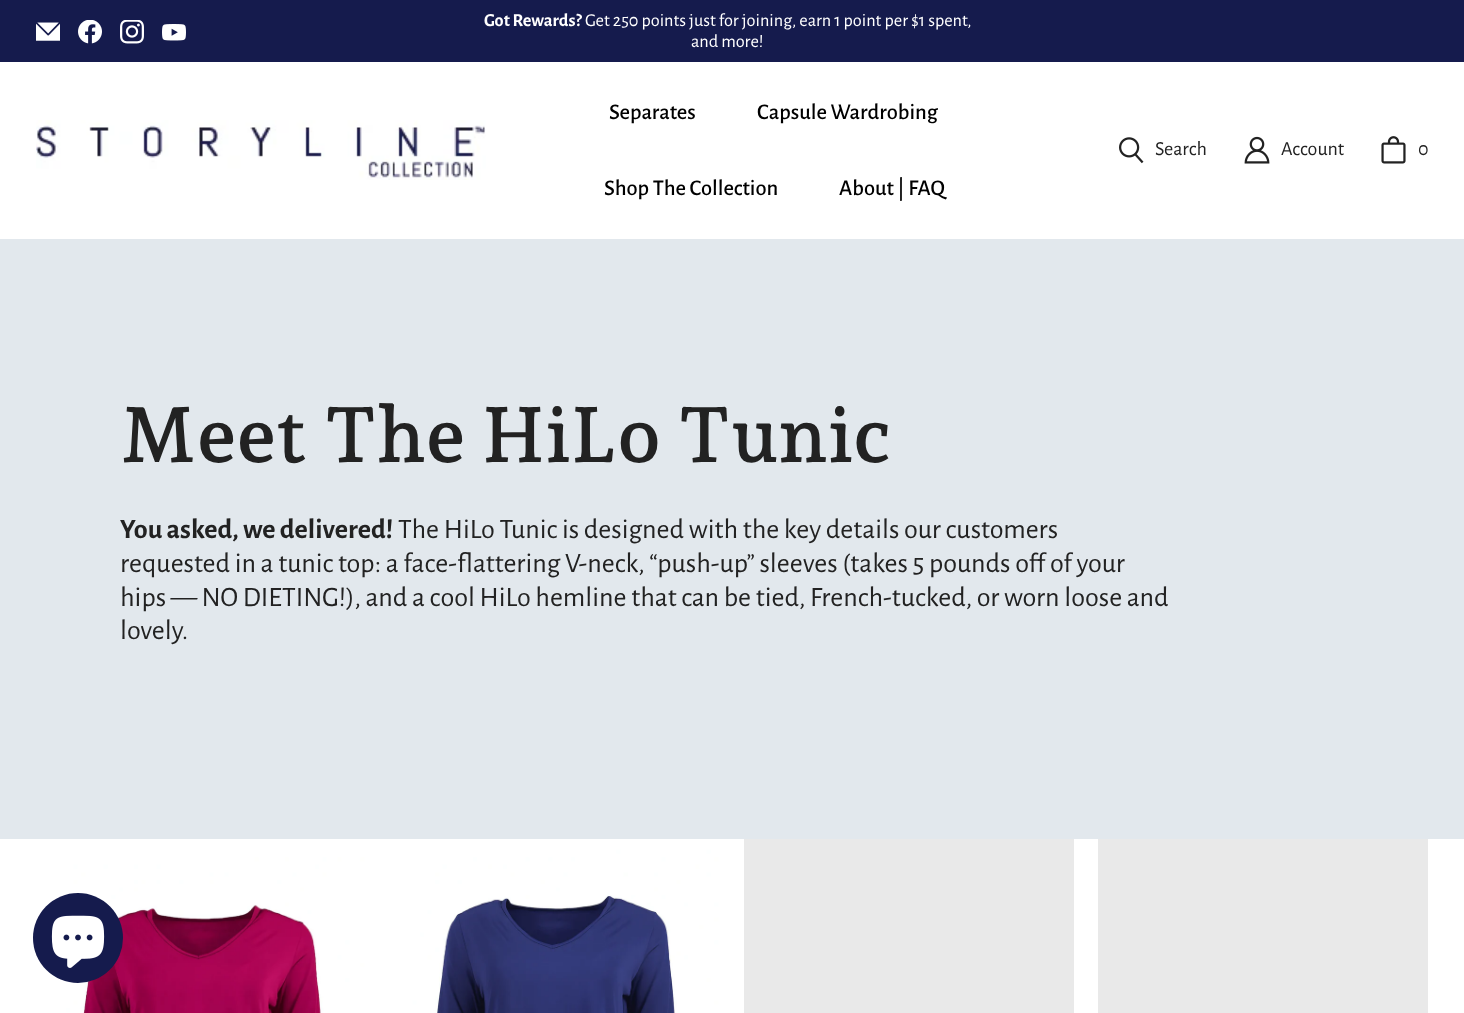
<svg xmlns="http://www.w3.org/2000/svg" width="1464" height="1013">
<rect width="100%" height="100%" fill="#fff"/>
<rect width="1464" height="62" fill="#151b4d"/>
<image x="36" y="22" width="24" height="19" href="media/1.png"/>
<image x="78" y="20" width="24" height="24" href="media/2.png"/>
<image x="120" y="20" width="24" height="24" href="media/3.png"/>
<image x="162" y="24" width="24" height="17" href="media/4.png"/>
<text x="484" y="26" style="font-family:Alegreya Sans;font-size:18.25px;font-weight:bold;fill:#fff">Got Rewards?</text>
<text x="585" y="26" style="font-family:Alegreya Sans;font-size:18.25px;fill:#fff">Get 250 points just for joining, earn 1 point per $1 spent,</text>
<text x="691" y="47" style="font-family:Alegreya Sans;font-size:18.25px;fill:#fff">and more!</text>
<image x="36" y="120" width="450" height="60" href="media/5.png"/>
<text x="609" y="119" style="font-family:Alegreya Sans;font-size:22.5px;font-weight:500;fill:#000">Separates</text>
<text x="757" y="119" style="font-family:Alegreya Sans;font-size:22.5px;font-weight:500;fill:#000">Capsule Wardrobing</text>
<text x="604" y="195" style="font-family:Alegreya Sans;font-size:22.5px;font-weight:500;fill:#000">Shop The Collection</text>
<text x="839" y="195" style="font-family:Alegreya Sans;font-size:22.5px;font-weight:500;fill:#000">About | FAQ</text>
<image x="1119" y="137" width="25" height="27" href="media/6.png"/>
<text x="1155" y="155" style="font-family:Alegreya Sans;font-size:20px;fill:#222">Search</text>
<image x="1244" y="136" width="26" height="28" href="media/7.png"/>
<text x="1281" y="155" style="font-family:Alegreya Sans;font-size:20px;fill:#222">Account</text>
<image x="1381" y="136" width="25" height="28" href="media/8.png"/>
<text x="1418" y="155" style="font-family:Alegreya Sans;font-size:20px;fill:#222">0</text>
<rect y="239" width="1464" height="600" fill="#e2e8ed"/>
<text x="120" y="462" style="font-family:Andada Pro;font-size:77.75px;font-weight:600;fill:#222">Meet The HiLo Tunic</text>
<text x="120" y="538" style="font-family:Alegreya Sans;font-size:28.1px;font-weight:bold;fill:#222">You asked, we delivered!</text>
<text x="398" y="538" style="font-family:Alegreya Sans;font-size:28.1px;fill:#222">The HiLo Tunic is designed with the key details our customers</text>
<text x="120" y="572" style="font-family:Alegreya Sans;font-size:28.1px;fill:#222">requested in a tunic top: a face-flattering V-neck, “push-up” sleeves (takes 5 pounds off of your</text>
<text x="120" y="606" style="font-family:Alegreya Sans;font-size:28.1px;fill:#222">hips — NO DIETING!), and a cool HiLo hemline that can be tied, French-tucked, or worn loose and</text>
<text x="120" y="639" style="font-family:Alegreya Sans;font-size:28.1px;fill:#222">lovely.</text>
<image x="36" y="839" width="330" height="174" href="media/9.png"/>
<image x="390" y="839" width="330" height="174" href="media/10.png"/>
<rect x="744" y="839" width="330" height="174" fill="#e9e9e9"/>
<rect x="1098" y="839" width="330" height="174" fill="#e9e9e9"/>
<circle cx="78" cy="938" r="45" fill="#151b4d"/>
<image x="51" y="915" width="54" height="53" href="media/11.png"/>
</svg>
